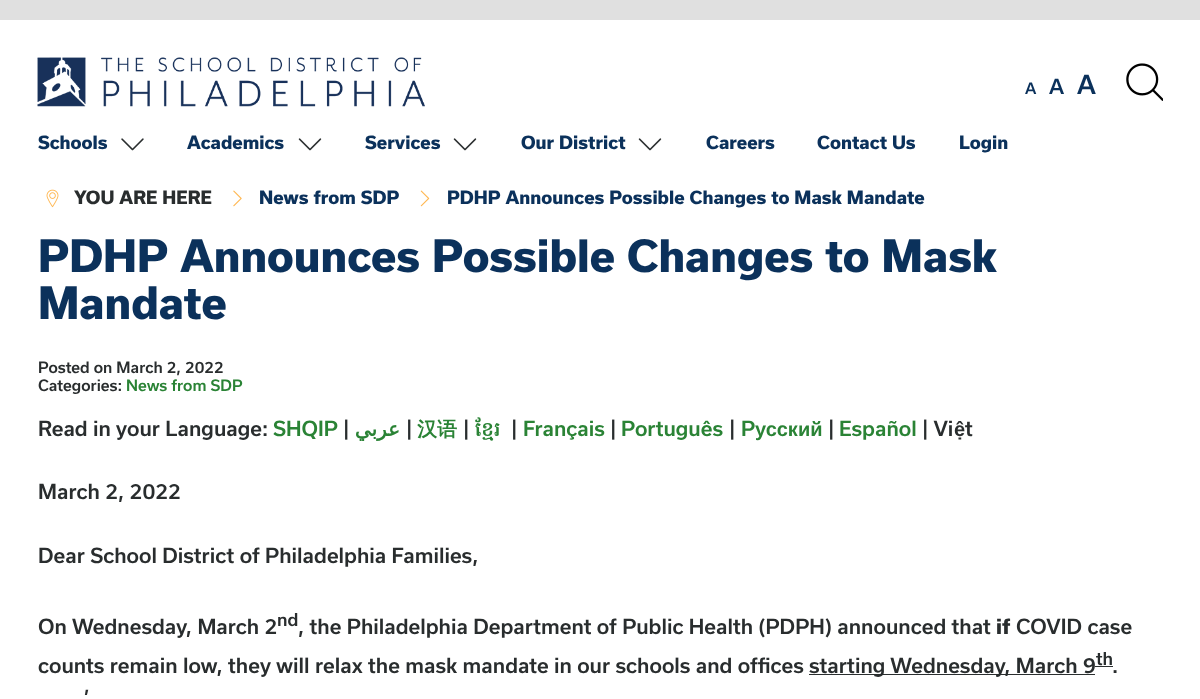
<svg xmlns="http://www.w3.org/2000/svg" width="1200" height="699">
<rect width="100%" height="100%" fill="#fff"/>
<rect width="1200" height="20" fill="#e0e0e0"/>
<image x="37" y="57" width="388" height="50" href="media/1.png"/>
<text x="1025" y="94" style="font-family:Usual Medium;font-size:15px;font-weight:500;fill:#0b315b">A</text>
<text x="1049" y="94" style="font-family:Usual Medium;font-size:20px;font-weight:500;fill:#0b315b">A</text>
<text x="1077" y="94" style="font-family:Usual Medium;font-size:25px;font-weight:500;fill:#0b315b">A</text>
<image x="1126" y="63" width="37" height="38" href="media/2.png"/>
<text x="38" y="149" style="font-family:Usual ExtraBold;font-size:17.5px;font-weight:800;fill:#0b315b">Schools</text>
<image x="121" y="138" width="23" height="13" href="media/3.png"/>
<text x="187" y="149" style="font-family:Usual ExtraBold;font-size:17.5px;font-weight:800;fill:#0b315b">Academics</text>
<image x="298" y="138" width="24" height="13" href="media/4.png"/>
<text x="365" y="149" style="font-family:Usual ExtraBold;font-size:17.5px;font-weight:800;fill:#0b315b">Services</text>
<image x="453" y="138" width="24" height="13" href="media/4.png"/>
<text x="521" y="149" style="font-family:Usual ExtraBold;font-size:17.5px;font-weight:800;fill:#0b315b">Our District</text>
<image x="638" y="138" width="24" height="13" href="media/4.png"/>
<text x="706" y="149" style="font-family:Usual ExtraBold;font-size:17.5px;font-weight:800;fill:#0b315b">Careers</text>
<text x="817" y="149" style="font-family:Usual ExtraBold;font-size:17.5px;font-weight:800;fill:#0b315b">Contact Us</text>
<text x="959" y="149" style="font-family:Usual ExtraBold;font-size:17.5px;font-weight:800;fill:#0b315b">Login</text>
<image x="46" y="189" width="13" height="19" href="media/5.png"/>
<text x="74" y="204" style="font-family:Usual ExtraBold;font-size:17.5px;font-weight:800;fill:#292d2e">YOU ARE HERE</text>
<image x="233" y="190" width="9" height="17" href="media/6.png"/>
<text x="259" y="204" style="font-family:Usual ExtraBold;font-size:17.5px;font-weight:800;fill:#0b315b">News from SDP</text>
<image x="420" y="190" width="10" height="17" href="media/7.png"/>
<text x="447" y="204" style="font-family:Usual ExtraBold;font-size:17.5px;font-weight:800;fill:#0b315b">PDHP Announces Possible Changes to Mask Mandate</text>
<text x="38" y="272" style="font-family:Usual ExtraBold;font-size:42.5px;font-weight:800;fill:#0b315b">PDHP Announces Possible Changes to Mask</text>
<text x="38" y="319" style="font-family:Usual ExtraBold;font-size:42.5px;font-weight:800;fill:#0b315b">Mandate</text>
<text x="38" y="373" style="font-family:Usual Medium;font-size:15px;font-weight:500;fill:#292d2e">Posted on March 2, 2022</text>
<text x="38" y="391" style="font-family:Usual Medium;font-size:15px;font-weight:500;fill:#292d2e">Categories:</text>
<text x="126" y="391" style="font-family:Usual Medium;font-size:15px;font-weight:500;fill:#2a8335">News from SDP</text>
<text x="343" y="436" style="font-family:Usual Medium;font-size:20px;font-weight:500;fill:#292d2e">|</text>
<text x="406" y="436" style="font-family:Usual Medium;font-size:20px;font-weight:500;fill:#292d2e">|</text>
<text x="417" y="436" style="font-family:WenQuanYi Zen Hei;font-size:20px;font-weight:bold;fill:#2a8335">汉语</text>
<text x="463" y="436" style="font-family:Usual Medium;font-size:20px;font-weight:500;fill:#292d2e">|</text>
<text x="475" y="436" style="font-family:Hanuman;font-size:20px;font-weight:600;fill:#2a8335">ខ្មែរ</text>
<text x="38" y="436" style="font-family:Usual Medium;font-size:20px;font-weight:500;fill:#292d2e">Read in your Language:</text>
<text x="273" y="436" style="font-family:Usual Medium;font-size:20px;font-weight:500;fill:#2a8335">SHQIP</text>
<text x="400" y="436" style="font-family:DejaVu Sans;font-size:20px;font-weight:bold;direction:rtl;fill:#2a8335">عربي</text>
<text x="511" y="436" style="font-family:Usual Medium;font-size:20px;font-weight:500;fill:#292d2e">|</text>
<text x="523" y="436" style="font-family:Usual Medium;font-size:20px;font-weight:500;fill:#2a8335">Français</text>
<text x="610" y="436" style="font-family:Usual Medium;font-size:20px;font-weight:500;fill:#292d2e">|</text>
<text x="621" y="436" style="font-family:Usual Medium;font-size:20px;font-weight:500;fill:#2a8335">Português</text>
<text x="729" y="436" style="font-family:Usual Medium;font-size:20px;font-weight:500;fill:#292d2e">|</text>
<text x="741" y="436" style="font-family:Usual Medium;font-size:20px;font-weight:500;fill:#2a8335">P</text>
<text x="755" y="436" style="font-family:Liberation Sans;font-size:20px;font-weight:bold;fill:#2a8335">усский</text>
<text x="828" y="436" style="font-family:Usual Medium;font-size:20px;font-weight:500;fill:#292d2e">|</text>
<text x="839" y="436" style="font-family:Usual Medium;font-size:20px;font-weight:500;fill:#2a8335">Español</text>
<text x="922" y="436" style="font-family:Usual Medium;font-size:20px;font-weight:500;fill:#292d2e">| Vi</text>
<text x="954" y="436" style="font-family:Liberation Sans;font-size:20px;font-weight:bold;fill:#292d2e">ệ</text>
<text x="965" y="436" style="font-family:Usual Medium;font-size:20px;font-weight:500;fill:#292d2e">t</text>
<text x="38" y="499" style="font-family:Usual Medium;font-size:20px;font-weight:500;fill:#292d2e">March 2, 2022</text>
<text x="38" y="563" style="font-family:Usual Medium;font-size:20px;font-weight:500;fill:#292d2e">Dear School District of Philadelphia Families,</text>
<text x="38" y="634" style="font-family:Usual Medium;font-size:20px;font-weight:500;fill:#292d2e">On Wednesday, March 2</text>
<text x="277" y="626" style="font-family:Usual Medium;font-size:17px;font-weight:500;fill:#292d2e">nd</text>
<text x="298" y="634" style="font-family:Usual Medium;font-size:20px;font-weight:500;fill:#292d2e">, the Philadelphia Department of Public Health (PDPH) announced that</text>
<text x="996" y="634" style="font-family:Usual ExtraBold;font-size:20px;font-weight:800;fill:#292d2e">if</text>
<text x="1016" y="634" style="font-family:Usual Medium;font-size:20px;font-weight:500;fill:#292d2e">COVID case</text>
<text x="38" y="673" style="font-family:Usual Medium;font-size:20px;font-weight:500;fill:#292d2e">counts remain low, they will relax the mask mandate in our schools and offices</text>
<rect x="809" y="674" width="286" height="1" fill="#2a2e2f"/>
<text x="809" y="673" style="font-family:Usual Medium;font-size:20px;font-weight:500;fill:#292d2e">starting Wednesday, March 9</text>
<rect x="1095" y="666" width="18" height="1" fill="#2a2e2f"/>
<text x="1096" y="665" style="font-family:Usual Medium;font-size:17px;font-weight:500;fill:#292d2e">th</text>
<text x="1112" y="673" style="font-family:Usual Medium;font-size:20px;font-weight:500;fill:#292d2e">.</text>
<text x="84" y="705" style="font-family:Usual Medium;font-size:20px;font-weight:500;fill:#292d2e">’</text>
</svg>
